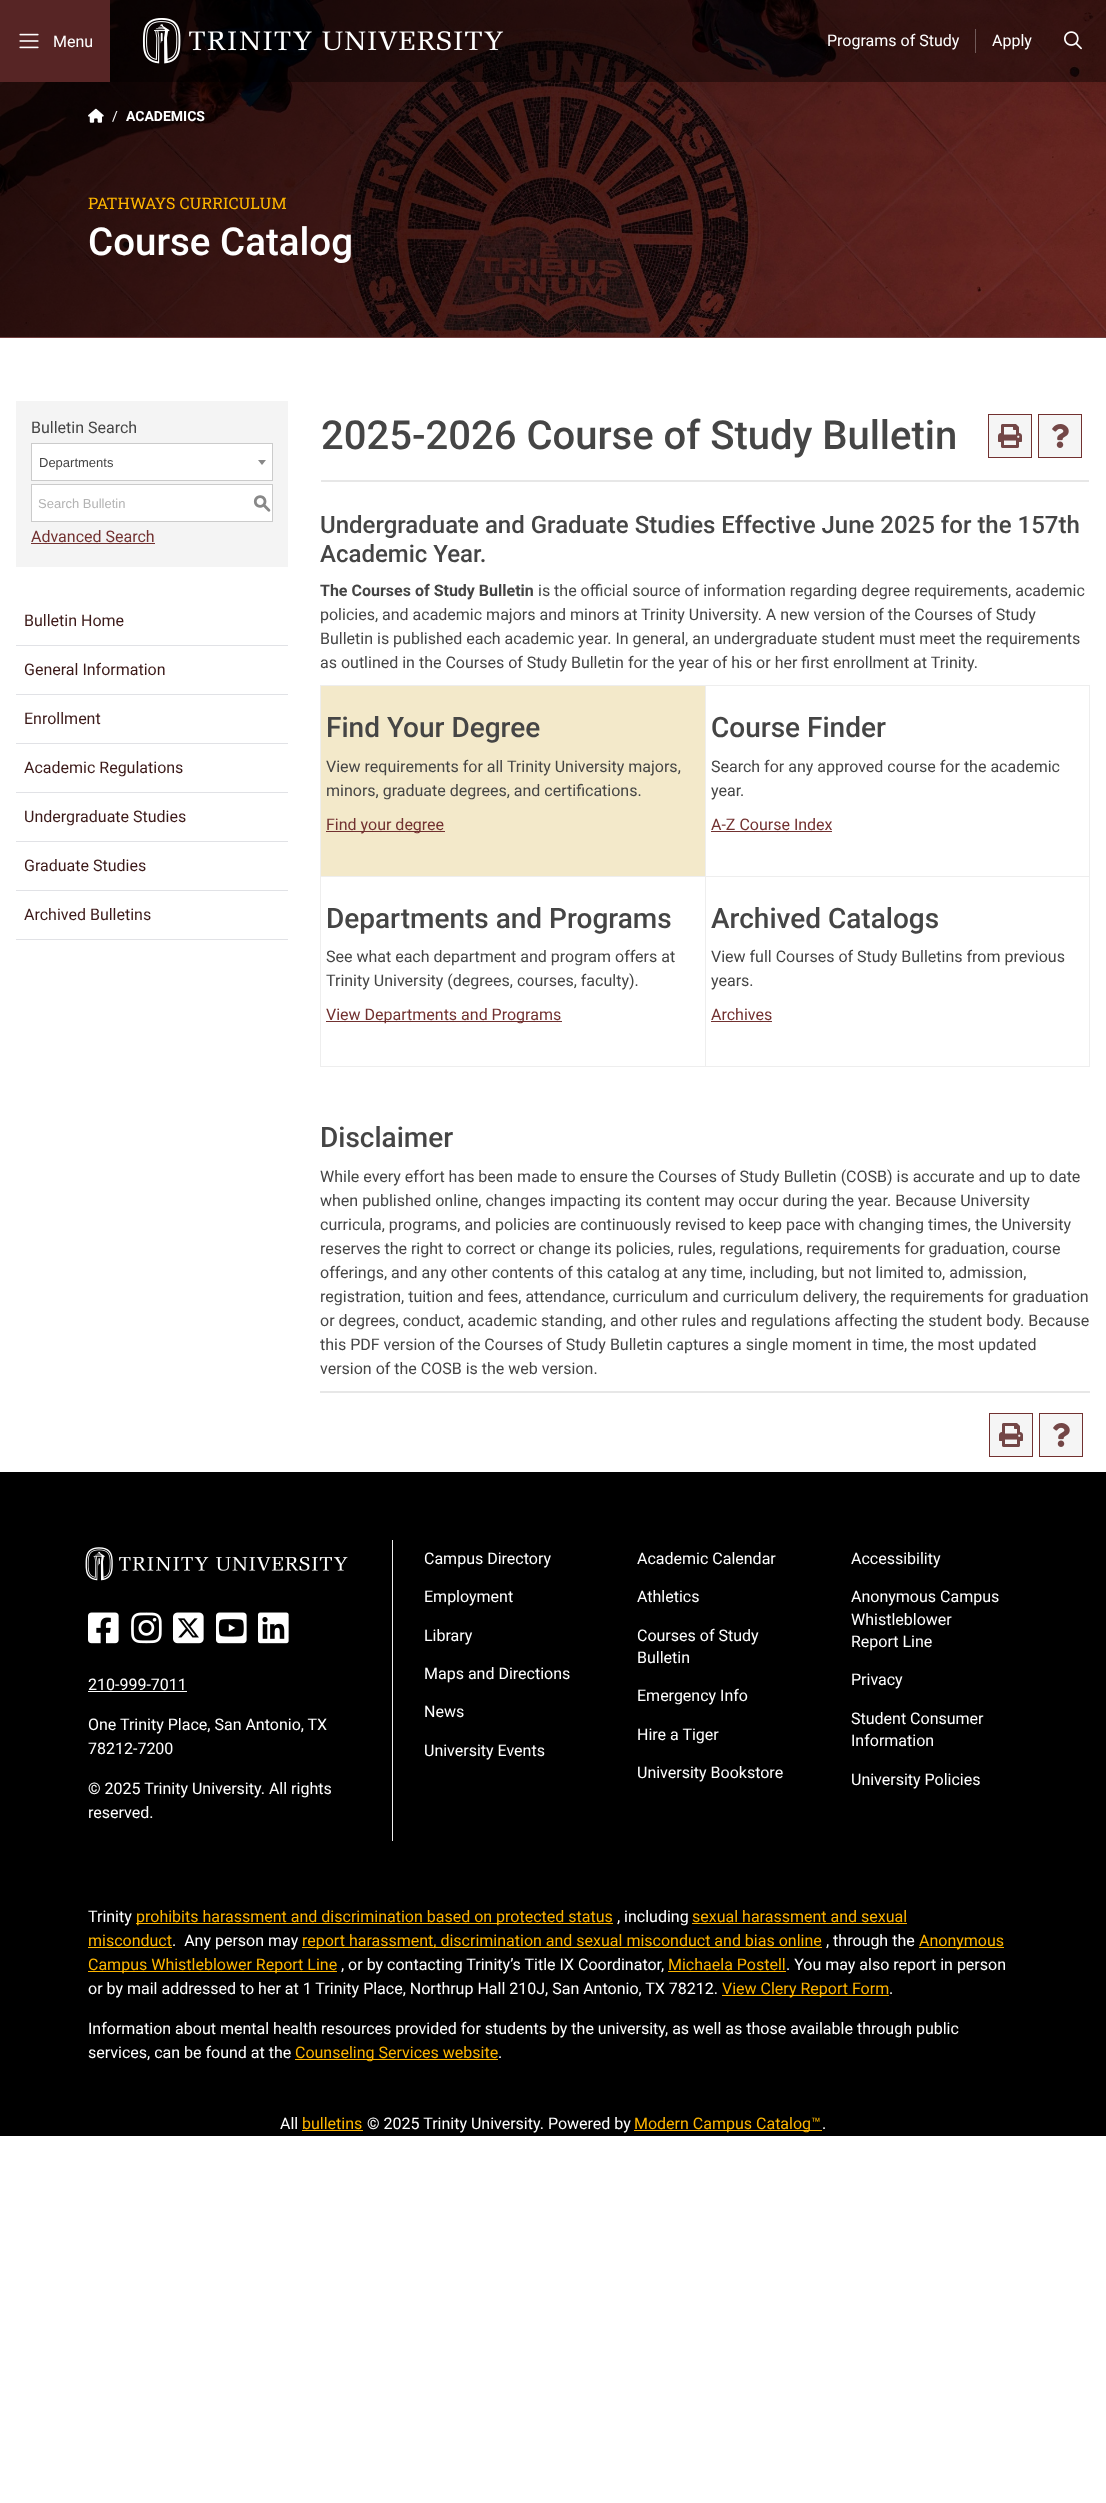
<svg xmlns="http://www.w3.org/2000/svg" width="1106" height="2503">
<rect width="100%" height="100%" fill="#fff"/>
<image x="0" y="0" width="1106" height="337" href="media/1.png"/>
<rect x="110" width="996" height="82" fill="#00000066"/>
<rect width="110" height="82" fill="#572525"/>
<image x="19" y="33" width="20" height="16" href="media/2.png"/>
<text x="53" y="47" style="font-family:Roboto;font-size:16px;fill:#fff">Menu</text>
<image x="142" y="18" width="362" height="46" href="media/3.png"/>
<rect x="975" y="29" width="1" height="24" fill="#ffffff4d"/>
<text x="827" y="46" style="font-family:Roboto;font-size:16px;fill:#fff">Programs of Study</text>
<text x="992" y="46" style="font-family:Roboto;font-size:16px;fill:#fff">Apply</text>
<image x="1064" y="31" width="18" height="19" href="media/4.png"/>
<rect y="337" width="1106" height="1" fill="#6f4040"/>
<image x="88" y="108" width="16" height="15" href="media/5.png"/>
<text x="112" y="121" style="font-family:Roboto;font-size:14px;fill:#fff">/</text>
<text x="126" y="121" style="font-family:Roboto;font-size:14px;font-weight:bold;fill:#fff">ACADEMICS</text>
<text x="88" y="209" style="font-family:Roboto Slab;font-size:16px;fill:#ffb600">PATHWAYS CURRICULUM</text>
<text x="88" y="255" style="font-family:Roboto;font-size:38.5px;font-weight:500;fill:#fff">Course Catalog</text>
<rect x="16" y="401" width="272" height="166" fill="#f4f4f4"/>
<text x="31" y="433" style="font-family:Roboto;font-size:16px;fill:#454545">Bulletin Search</text>
<rect x="31.5" y="443.5" width="241" height="37" fill="#fff" stroke="#cbcbcb"/>
<text x="39" y="467" style="font-family:Liberation Sans;font-size:13px;fill:#454545">Departments</text>
<path d="M258 460h8l-4 5z" fill="#888"/>
<rect x="31.5" y="484.5" width="241" height="37" fill="#fff" stroke="#cbcbcb"/>
<text x="38" y="508" style="font-family:Liberation Sans;font-size:13px;fill:#b3b3b3">Search Bulletin</text>
<text x="253" y="509" style="font-family:'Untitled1';font-size:18px;font-weight:500;fill:#888">S</text>
<text x="31" y="542" style="font-family:Roboto;font-size:16px;fill:#723130">Advanced Search</text>
<rect x="31" y="543" width="124" height="1" fill="#723130"/>
<rect x="16" y="645" width="272" height="1" fill="#e1e2e6"/>
<text x="24" y="626" style="font-family:Roboto;font-size:16px;fill:#3c1a19">Bulletin Home</text>
<rect x="16" y="694" width="272" height="1" fill="#e1e2e6"/>
<text x="24" y="675" style="font-family:Roboto;font-size:16px;fill:#3c1a19">General Information</text>
<rect x="16" y="743" width="272" height="1" fill="#e1e2e6"/>
<text x="24" y="724" style="font-family:Roboto;font-size:16px;fill:#3c1a19">Enrollment</text>
<rect x="16" y="792" width="272" height="1" fill="#e1e2e6"/>
<text x="24" y="773" style="font-family:Roboto;font-size:16px;fill:#3c1a19">Academic Regulations</text>
<rect x="16" y="841" width="272" height="1" fill="#e1e2e6"/>
<text x="24" y="822" style="font-family:Roboto;font-size:16px;fill:#3c1a19">Undergraduate Studies</text>
<rect x="16" y="890" width="272" height="1" fill="#e1e2e6"/>
<text x="24" y="871" style="font-family:Roboto;font-size:16px;fill:#3c1a19">Graduate Studies</text>
<rect x="16" y="939" width="272" height="1" fill="#e1e2e6"/>
<text x="24" y="920" style="font-family:Roboto;font-size:16px;fill:#3c1a19">Archived Bulletins</text>
<text x="321" y="449" style="font-family:Roboto;font-size:40px;font-weight:500;fill:#454545">2025-2026 Course of Study Bulletin</text>
<rect x="988.5" y="414.5" width="43" height="43" fill="#f5f5f5" stroke="#723130"/>
<image x="998" y="424" width="24" height="24" href="media/6.png"/>
<rect x="1038.5" y="414.5" width="43" height="43" fill="#f5f5f5" stroke="#723130"/>
<image x="1052" y="424" width="17" height="24" href="media/7.png"/>
<rect x="321" y="480" width="768" height="2" fill="#e7e7e7"/>
<text x="320" y="533" style="font-family:Roboto;font-size:24px;font-weight:500;fill:#454545">Undergraduate and Graduate Studies Effective June 2025 for the 157th</text>
<text x="320" y="562" style="font-family:Roboto;font-size:24px;font-weight:500;fill:#454545">Academic Year.</text>
<text x="320" y="596" style="font-family:Roboto;font-size:16px;font-weight:bold;fill:#454545">The Courses of Study Bulletin</text>
<text x="538" y="596" style="font-family:Roboto;font-size:16px;fill:#454545">is the official source of information regarding degree requirements, academic</text>
<text x="320" y="620" style="font-family:Roboto;font-size:16px;fill:#454545">policies, and academic majors and minors at Trinity University. A new version of the Courses of Study</text>
<text x="320" y="644" style="font-family:Roboto;font-size:16px;fill:#454545">Bulletin is published each academic year. In general, an undergraduate student must meet the requirements</text>
<text x="320" y="668" style="font-family:Roboto;font-size:16px;fill:#454545">as outlined in the Courses of Study Bulletin for the year of his or her first enrollment at Trinity.</text>
<rect x="321" y="686" width="384" height="190" fill="#f3e9ca"/>
<rect x="705" y="685" width="385" height="1" fill="#eee"/>
<rect x="705" y="876" width="385" height="1" fill="#eee"/>
<rect x="1089" y="876" width="1" height="191" fill="#eee"/>
<rect x="705" y="1066" width="385" height="1" fill="#eee"/>
<rect x="705" y="876" width="1" height="191" fill="#eee"/>
<rect x="320" y="876" width="386" height="1" fill="#eee"/>
<rect x="705" y="685" width="1" height="192" fill="#eee"/>
<rect x="320" y="685" width="386" height="1" fill="#eee"/>
<rect x="320" y="1066" width="386" height="1" fill="#eee"/>
<rect x="320" y="876" width="1" height="191" fill="#eee"/>
<rect x="320" y="685" width="1" height="192" fill="#eee"/>
<text x="326" y="737" style="font-family:Roboto;font-size:28px;font-weight:500;fill:#454545">Find Your Degree</text>
<text x="326" y="772" style="font-family:Roboto;font-size:16px;fill:#454545">View requirements for all Trinity University majors,</text>
<text x="326" y="796" style="font-family:Roboto;font-size:16px;fill:#454545">minors, graduate degrees, and certifications.</text>
<rect x="326" y="831" width="119" height="1" fill="#723130"/>
<text x="326" y="830" style="font-family:Roboto;font-size:16px;fill:#723130">Find your degree</text>
<rect x="1089" y="685" width="1" height="192" fill="#eee"/>
<text x="711" y="737" style="font-family:Roboto;font-size:28px;font-weight:500;fill:#454545">Course Finder</text>
<text x="711" y="772" style="font-family:Roboto;font-size:16px;fill:#454545">Search for any approved course for the academic</text>
<text x="711" y="796" style="font-family:Roboto;font-size:16px;fill:#454545">year.</text>
<text x="711" y="830" style="font-family:Roboto;font-size:16px;fill:#723130">A-Z Course Index</text>
<rect x="711" y="831" width="121" height="1" fill="#723130"/>
<text x="326" y="928" style="font-family:Roboto;font-size:28px;font-weight:500;fill:#454545">Departments and Programs</text>
<text x="326" y="962" style="font-family:Roboto;font-size:16px;fill:#454545">See what each department and program offers at</text>
<text x="326" y="986" style="font-family:Roboto;font-size:16px;fill:#454545">Trinity University (degrees, courses, faculty).</text>
<rect x="326" y="1021" width="236" height="1" fill="#723130"/>
<text x="326" y="1020" style="font-family:Roboto;font-size:16px;fill:#723130">View Departments and Programs</text>
<text x="711" y="928" style="font-family:Roboto;font-size:28px;font-weight:500;fill:#454545">Archived Catalogs</text>
<text x="711" y="962" style="font-family:Roboto;font-size:16px;fill:#454545">View full Courses of Study Bulletins from previous</text>
<text x="711" y="986" style="font-family:Roboto;font-size:16px;fill:#454545">years.</text>
<text x="711" y="1020" style="font-family:Roboto;font-size:16px;fill:#723130">Archives</text>
<rect x="711" y="1021" width="61" height="1" fill="#723130"/>
<text x="320" y="1147" style="font-family:Roboto;font-size:28px;font-weight:500;fill:#454545">Disclaimer</text>
<text x="320" y="1182" style="font-family:Roboto;font-size:16px;fill:#454545">While every effort has been made to ensure the Courses of Study Bulletin (COSB) is accurate and up to date</text>
<text x="320" y="1206" style="font-family:Roboto;font-size:16px;fill:#454545">when published online, changes impacting its content may occur during the year. Because University</text>
<text x="320" y="1230" style="font-family:Roboto;font-size:16px;fill:#454545">curricula, programs, and policies are continuously revised to keep pace with changing times, the University</text>
<text x="320" y="1254" style="font-family:Roboto;font-size:16px;fill:#454545">reserves the right to correct or change its policies, rules, regulations, requirements for graduation, course</text>
<text x="320" y="1278" style="font-family:Roboto;font-size:16px;fill:#454545">offerings, and any other contents of this catalog at any time, including, but not limited to, admission,</text>
<text x="320" y="1302" style="font-family:Roboto;font-size:16px;fill:#454545">registration, tuition and fees, attendance, curriculum and curriculum delivery, the requirements for graduation</text>
<text x="320" y="1326" style="font-family:Roboto;font-size:16px;fill:#454545">or degrees, conduct, academic standing, and other rules and regulations affecting the student body. Because</text>
<text x="320" y="1350" style="font-family:Roboto;font-size:16px;fill:#454545">this PDF version of the Courses of Study Bulletin captures a single moment in time, the most updated</text>
<text x="320" y="1374" style="font-family:Roboto;font-size:16px;fill:#454545">version of the COSB is the web version.</text>
<rect x="320" y="1391" width="770" height="2" fill="#e7e7e7"/>
<rect x="989.5" y="1413.5" width="43" height="43" fill="#f5f5f5" stroke="#723130"/>
<image x="999" y="1423" width="24" height="24" href="media/6.png"/>
<rect x="1039.5" y="1413.5" width="43" height="43" fill="#f5f5f5" stroke="#723130"/>
<image x="1053" y="1423" width="17" height="24" href="media/7.png"/>
<rect y="1472" width="1106" height="664" fill="#000"/>
<rect x="392" y="1540" width="1" height="301" fill="#eee"/>
<image x="85" y="1547" width="263" height="34" href="media/8.png"/>
<image x="88" y="1612" width="31" height="32" href="media/9.png"/>
<image x="131" y="1612" width="31" height="32" href="media/10.png"/>
<image x="173" y="1612" width="31" height="32" href="media/11.png"/>
<image x="216" y="1612" width="31" height="32" href="media/12.png"/>
<image x="258" y="1612" width="31" height="32" href="media/13.png"/>
<text x="88" y="1690" style="font-family:Roboto;font-size:16px;fill:#fff">210-999-7011</text>
<rect x="88" y="1691" width="99" height="1" fill="#fff"/>
<text x="88" y="1730" style="font-family:Roboto;font-size:16px;fill:#fff">One Trinity Place, San Antonio, TX</text>
<text x="88" y="1754" style="font-family:Roboto;font-size:16px;fill:#fff">78212-7200</text>
<text x="88" y="1794" style="font-family:Roboto;font-size:16px;fill:#fff">© 2025 Trinity University. All rights</text>
<text x="88" y="1818" style="font-family:Roboto;font-size:16px;fill:#fff">reserved.</text>
<text x="424" y="1564" style="font-family:Roboto;font-size:16px;fill:#fff">Campus Directory</text>
<text x="424" y="1602" style="font-family:Roboto;font-size:16px;fill:#fff">Employment</text>
<text x="424" y="1641" style="font-family:Roboto;font-size:16px;fill:#fff">Library</text>
<text x="424" y="1679" style="font-family:Roboto;font-size:16px;fill:#fff">Maps and Directions</text>
<text x="424" y="1717" style="font-family:Roboto;font-size:16px;fill:#fff">News</text>
<text x="424" y="1756" style="font-family:Roboto;font-size:16px;fill:#fff">University Events</text>
<text x="637" y="1564" style="font-family:Roboto;font-size:16px;fill:#fff">Academic Calendar</text>
<text x="637" y="1602" style="font-family:Roboto;font-size:16px;fill:#fff">Athletics</text>
<text x="637" y="1641" style="font-family:Roboto;font-size:16px;fill:#fff">Courses of Study</text>
<text x="637" y="1663" style="font-family:Roboto;font-size:16px;fill:#fff">Bulletin</text>
<text x="637" y="1701" style="font-family:Roboto;font-size:16px;fill:#fff">Emergency Info</text>
<text x="637" y="1740" style="font-family:Roboto;font-size:16px;fill:#fff">Hire a Tiger</text>
<text x="637" y="1778" style="font-family:Roboto;font-size:16px;fill:#fff">University Bookstore</text>
<text x="851" y="1564" style="font-family:Roboto;font-size:16px;fill:#fff">Accessibility</text>
<text x="851" y="1602" style="font-family:Roboto;font-size:16px;fill:#fff">Anonymous Campus</text>
<text x="851" y="1625" style="font-family:Roboto;font-size:16px;fill:#fff">Whistleblower</text>
<text x="851" y="1647" style="font-family:Roboto;font-size:16px;fill:#fff">Report Line</text>
<text x="851" y="1685" style="font-family:Roboto;font-size:16px;fill:#fff">Privacy</text>
<text x="851" y="1724" style="font-family:Roboto;font-size:16px;fill:#fff">Student Consumer</text>
<text x="851" y="1746" style="font-family:Roboto;font-size:16px;fill:#fff">Information</text>
<text x="851" y="1785" style="font-family:Roboto;font-size:16px;fill:#fff">University Policies</text>
<text x="88" y="1922" style="font-family:Roboto;font-size:16px;fill:#fff">Trinity</text>
<rect x="136" y="1923" width="477" height="1" fill="#ffb600"/>
<text x="136" y="1922" style="font-family:Roboto;font-size:16px;fill:#ffb600">prohibits harassment and discrimination based on protected status</text>
<text x="617" y="1922" style="font-family:Roboto;font-size:16px;fill:#fff">, including</text>
<text x="692" y="1922" style="font-family:Roboto;font-size:16px;fill:#ffb600">sexual harassment and sexual</text>
<rect x="692" y="1923" width="215" height="1" fill="#ffb600"/>
<text x="88" y="1946" style="font-family:Roboto;font-size:16px;fill:#ffb600">misconduct</text>
<rect x="88" y="1947" width="84" height="1" fill="#ffb600"/>
<text x="172" y="1946" style="font-family:Roboto;font-size:16px;fill:#fff" xml:space="preserve">.  Any person may</text>
<rect x="302" y="1947" width="520" height="1" fill="#ffb600"/>
<text x="302" y="1946" style="font-family:Roboto;font-size:16px;fill:#ffb600">report harassment, discrimination and sexual misconduct and bias online</text>
<text x="826" y="1946" style="font-family:Roboto;font-size:16px;fill:#fff">, through the</text>
<rect x="919" y="1947" width="85" height="1" fill="#ffb600"/>
<text x="919" y="1946" style="font-family:Roboto;font-size:16px;fill:#ffb600">Anonymous</text>
<rect x="88" y="1971" width="249" height="1" fill="#ffb600"/>
<text x="88" y="1970" style="font-family:Roboto;font-size:16px;fill:#ffb600">Campus Whistleblower Report Line</text>
<text x="341" y="1970" style="font-family:Roboto;font-size:16px;fill:#fff">, or by contacting Trinity’s Title IX Coordinator,</text>
<text x="668" y="1970" style="font-family:Roboto;font-size:16px;fill:#ffb600">Michaela Postell</text>
<rect x="668" y="1971" width="118" height="1" fill="#ffb600"/>
<text x="786" y="1970" style="font-family:Roboto;font-size:16px;fill:#fff">. You may also report in person</text>
<text x="88" y="1994" style="font-family:Roboto;font-size:16px;fill:#fff">or by mail addressed to her at 1 Trinity Place, Northrup Hall 210J, San Antonio, TX 78212.</text>
<rect x="722" y="1995" width="167" height="1" fill="#ffb600"/>
<text x="722" y="1994" style="font-family:Roboto;font-size:16px;fill:#ffb600">View Clery Report Form</text>
<text x="889" y="1994" style="font-family:Roboto;font-size:16px;fill:#fff">.</text>
<text x="88" y="2034" style="font-family:Roboto;font-size:16px;fill:#fff">Information about mental health resources provided for students by the university, as well as those available through public</text>
<text x="88" y="2058" style="font-family:Roboto;font-size:16px;fill:#fff">services, can be found at the</text>
<rect x="295" y="2059" width="203" height="1" fill="#ffb600"/>
<text x="295" y="2058" style="font-family:Roboto;font-size:16px;fill:#ffb600">Counseling Services website</text>
<text x="498" y="2058" style="font-family:Roboto;font-size:16px;fill:#fff">.</text>
<text x="280" y="2129" style="font-family:Roboto;font-size:16px;fill:#fff">All</text>
<text x="302" y="2129" style="font-family:Roboto;font-size:16px;fill:#ffb600">bulletins</text>
<rect x="302" y="2130" width="61" height="1" fill="#ffb600"/>
<text x="367" y="2129" style="font-family:Roboto;font-size:16px;fill:#fff">© 2025 Trinity University. Powered by</text>
<rect x="634" y="2130" width="188" height="1" fill="#ffb600"/>
<text x="634" y="2129" style="font-family:Roboto;font-size:16px;fill:#ffb600">Modern Campus Catalog™</text>
<text x="822" y="2129" style="font-family:Roboto;font-size:16px;fill:#fff">.</text>
</svg>
